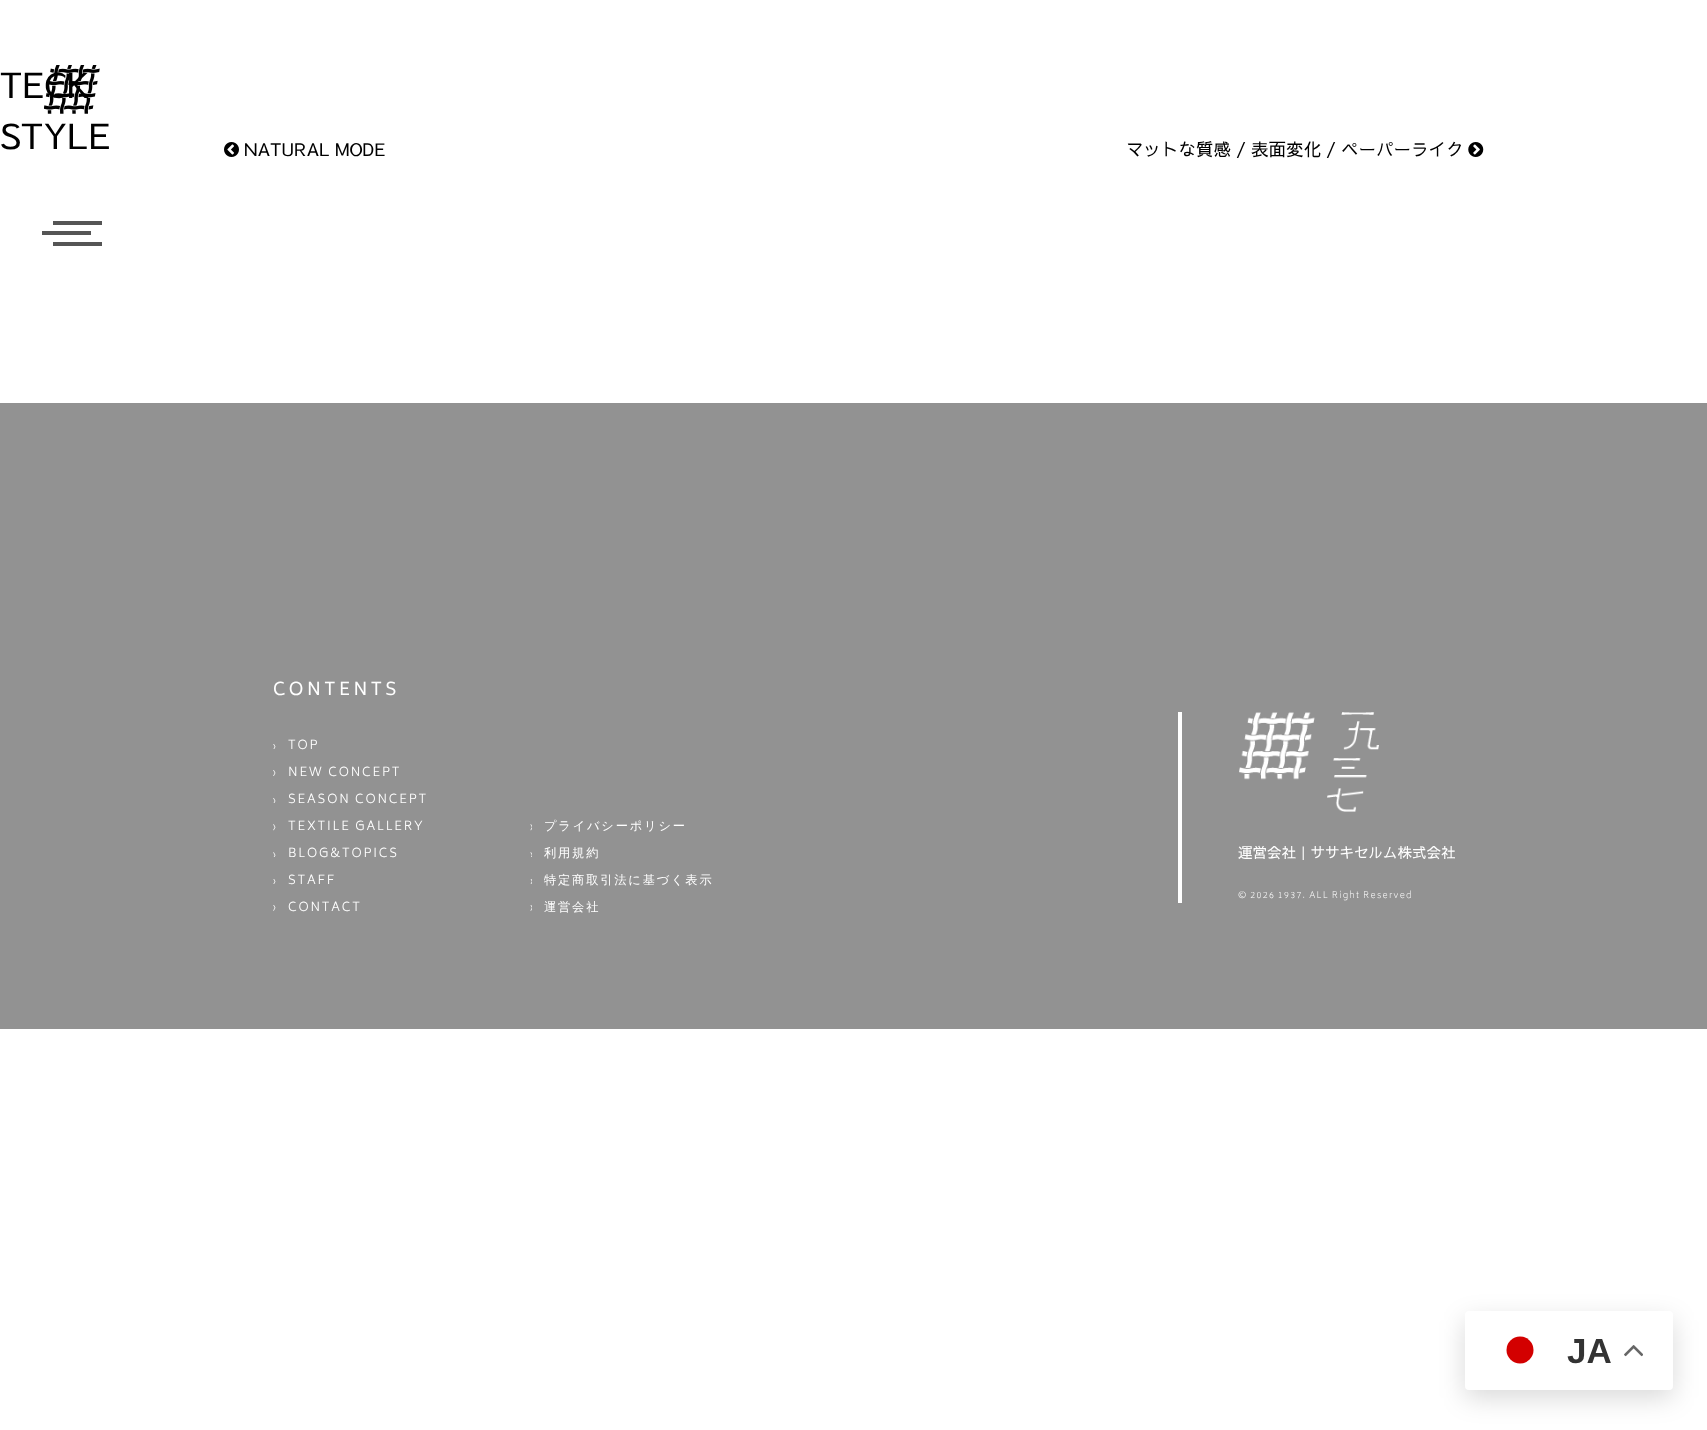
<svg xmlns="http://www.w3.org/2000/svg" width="1707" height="1430">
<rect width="100%" height="100%" fill="#fff"/>
<image x="44" y="65" width="56" height="49" href="media/1.png"/>
<text x="0" y="98" style="font-family:Sawarabi Gothic;font-size:35px;fill:#000">TECK</text>
<text x="0" y="149" style="font-family:Sawarabi Gothic;font-size:35px;fill:#000">STYLE</text>
<image x="224" y="142" width="15" height="15" href="media/2.png"/>
<text x="244" y="156" style="font-family:Sawarabi Gothic;font-size:17.5px;fill:#000">NATURAL MODE</text>
<text x="1126" y="156" style="font-family:Sawarabi Gothic;font-size:17.5px;fill:#000">マットな質感 / 表面変化 / ペーパーライク</text>
<image x="1468" y="142" width="16" height="15" href="media/3.png"/>
<rect x="53" y="221" width="49" height="4" fill="#555"/>
<rect x="42" y="231" width="49" height="4" fill="#555"/>
<rect x="53" y="242" width="49" height="4" fill="#555"/>
<rect y="403" width="1707" height="626" fill="#929292"/>
<text x="273" y="695" style="font-family:Biryani;font-size:17.5px;letter-spacing:3.5px;fill:#fff">CONTENTS</text>
<image x="273" y="744" width="3" height="5" href="media/4.png"/>
<text x="288" y="749" style="font-family:Biryani;font-size:12.25px;font-weight:300;letter-spacing:1.8px;fill:#fff">TOP</text>
<image x="273" y="770" width="3" height="6" href="media/5.png"/>
<text x="288" y="776" style="font-family:Biryani;font-size:12.25px;font-weight:300;letter-spacing:1.8px;fill:#fff">NEW CONCEPT</text>
<image x="273" y="798" width="3" height="5" href="media/6.png"/>
<text x="288" y="803" style="font-family:Biryani;font-size:12.25px;font-weight:300;letter-spacing:1.8px;fill:#fff">SEASON CONCEPT</text>
<image x="273" y="824" width="3" height="7" href="media/7.png"/>
<text x="288" y="830" style="font-family:Biryani;font-size:12.25px;font-weight:300;letter-spacing:1.8px;fill:#fff">TEXTILE GALLERY</text>
<image x="273" y="852" width="3" height="5" href="media/8.png"/>
<text x="288" y="857" style="font-family:Biryani;font-size:12.25px;font-weight:300;letter-spacing:1.8px;fill:#fff">BLOG&amp;TOPICS</text>
<image x="273" y="879" width="3" height="5" href="media/9.png"/>
<text x="288" y="884" style="font-family:Biryani;font-size:12.25px;font-weight:300;letter-spacing:1.8px;fill:#fff">STAFF</text>
<image x="273" y="905" width="3" height="6" href="media/10.png"/>
<text x="288" y="911" style="font-family:Biryani;font-size:12.25px;font-weight:300;letter-spacing:1.8px;fill:#fff">CONTACT</text>
<image x="530" y="824" width="2" height="7" href="media/11.png"/>
<text x="544" y="830" style="font-family:WenQuanYi Zen Hei;font-size:12.25px;font-weight:500;letter-spacing:1.8px;fill:#fff">プライバシーポリシー</text>
<image x="530" y="852" width="2" height="5" href="media/12.png"/>
<text x="544" y="857" style="font-family:WenQuanYi Zen Hei;font-size:12.25px;font-weight:500;letter-spacing:1.8px;fill:#fff">利用規約</text>
<image x="530" y="879" width="2" height="5" href="media/13.png"/>
<text x="544" y="884" style="font-family:WenQuanYi Zen Hei;font-size:12.25px;font-weight:500;letter-spacing:1.8px;fill:#fff">特定商取引法に基づく表示</text>
<image x="530" y="905" width="2" height="6" href="media/14.png"/>
<text x="544" y="911" style="font-family:WenQuanYi Zen Hei;font-size:12.25px;font-weight:500;letter-spacing:1.8px;fill:#fff">運営会社</text>
<rect x="1178" y="712" width="4" height="191" fill="#fff"/>
<image x="1239" y="712" width="140" height="100" href="media/15.png"/>
<text x="1238" y="858" style="font-family:Sawarabi Gothic;font-size:14.5px;fill:#fff">運営会社｜ササキセルム株式会社</text>
<text x="1238" y="898" word-spacing="-0.5" style="font-family:Biryani;font-size:8.9px;font-weight:200;letter-spacing:1.3px;fill:#fff">©︎ 2026 1937. ALL Right Reserved</text>
<rect x="1465" y="1320" width="208" height="78" rx="4" fill="#00000026" filter="blur(13px)"/>
<rect x="1465" y="1311" width="208" height="79" rx="4" fill="#fff"/>
<circle cx="1520" cy="1350" r="13.5" fill="#d30000"/>
<text x="1567" y="1363" style="font-family:Liberation Sans;font-size:35px;font-weight:bold;fill:#333">JA</text>
<image x="1624" y="1345" width="19" height="12" href="media/16.png"/>
</svg>
